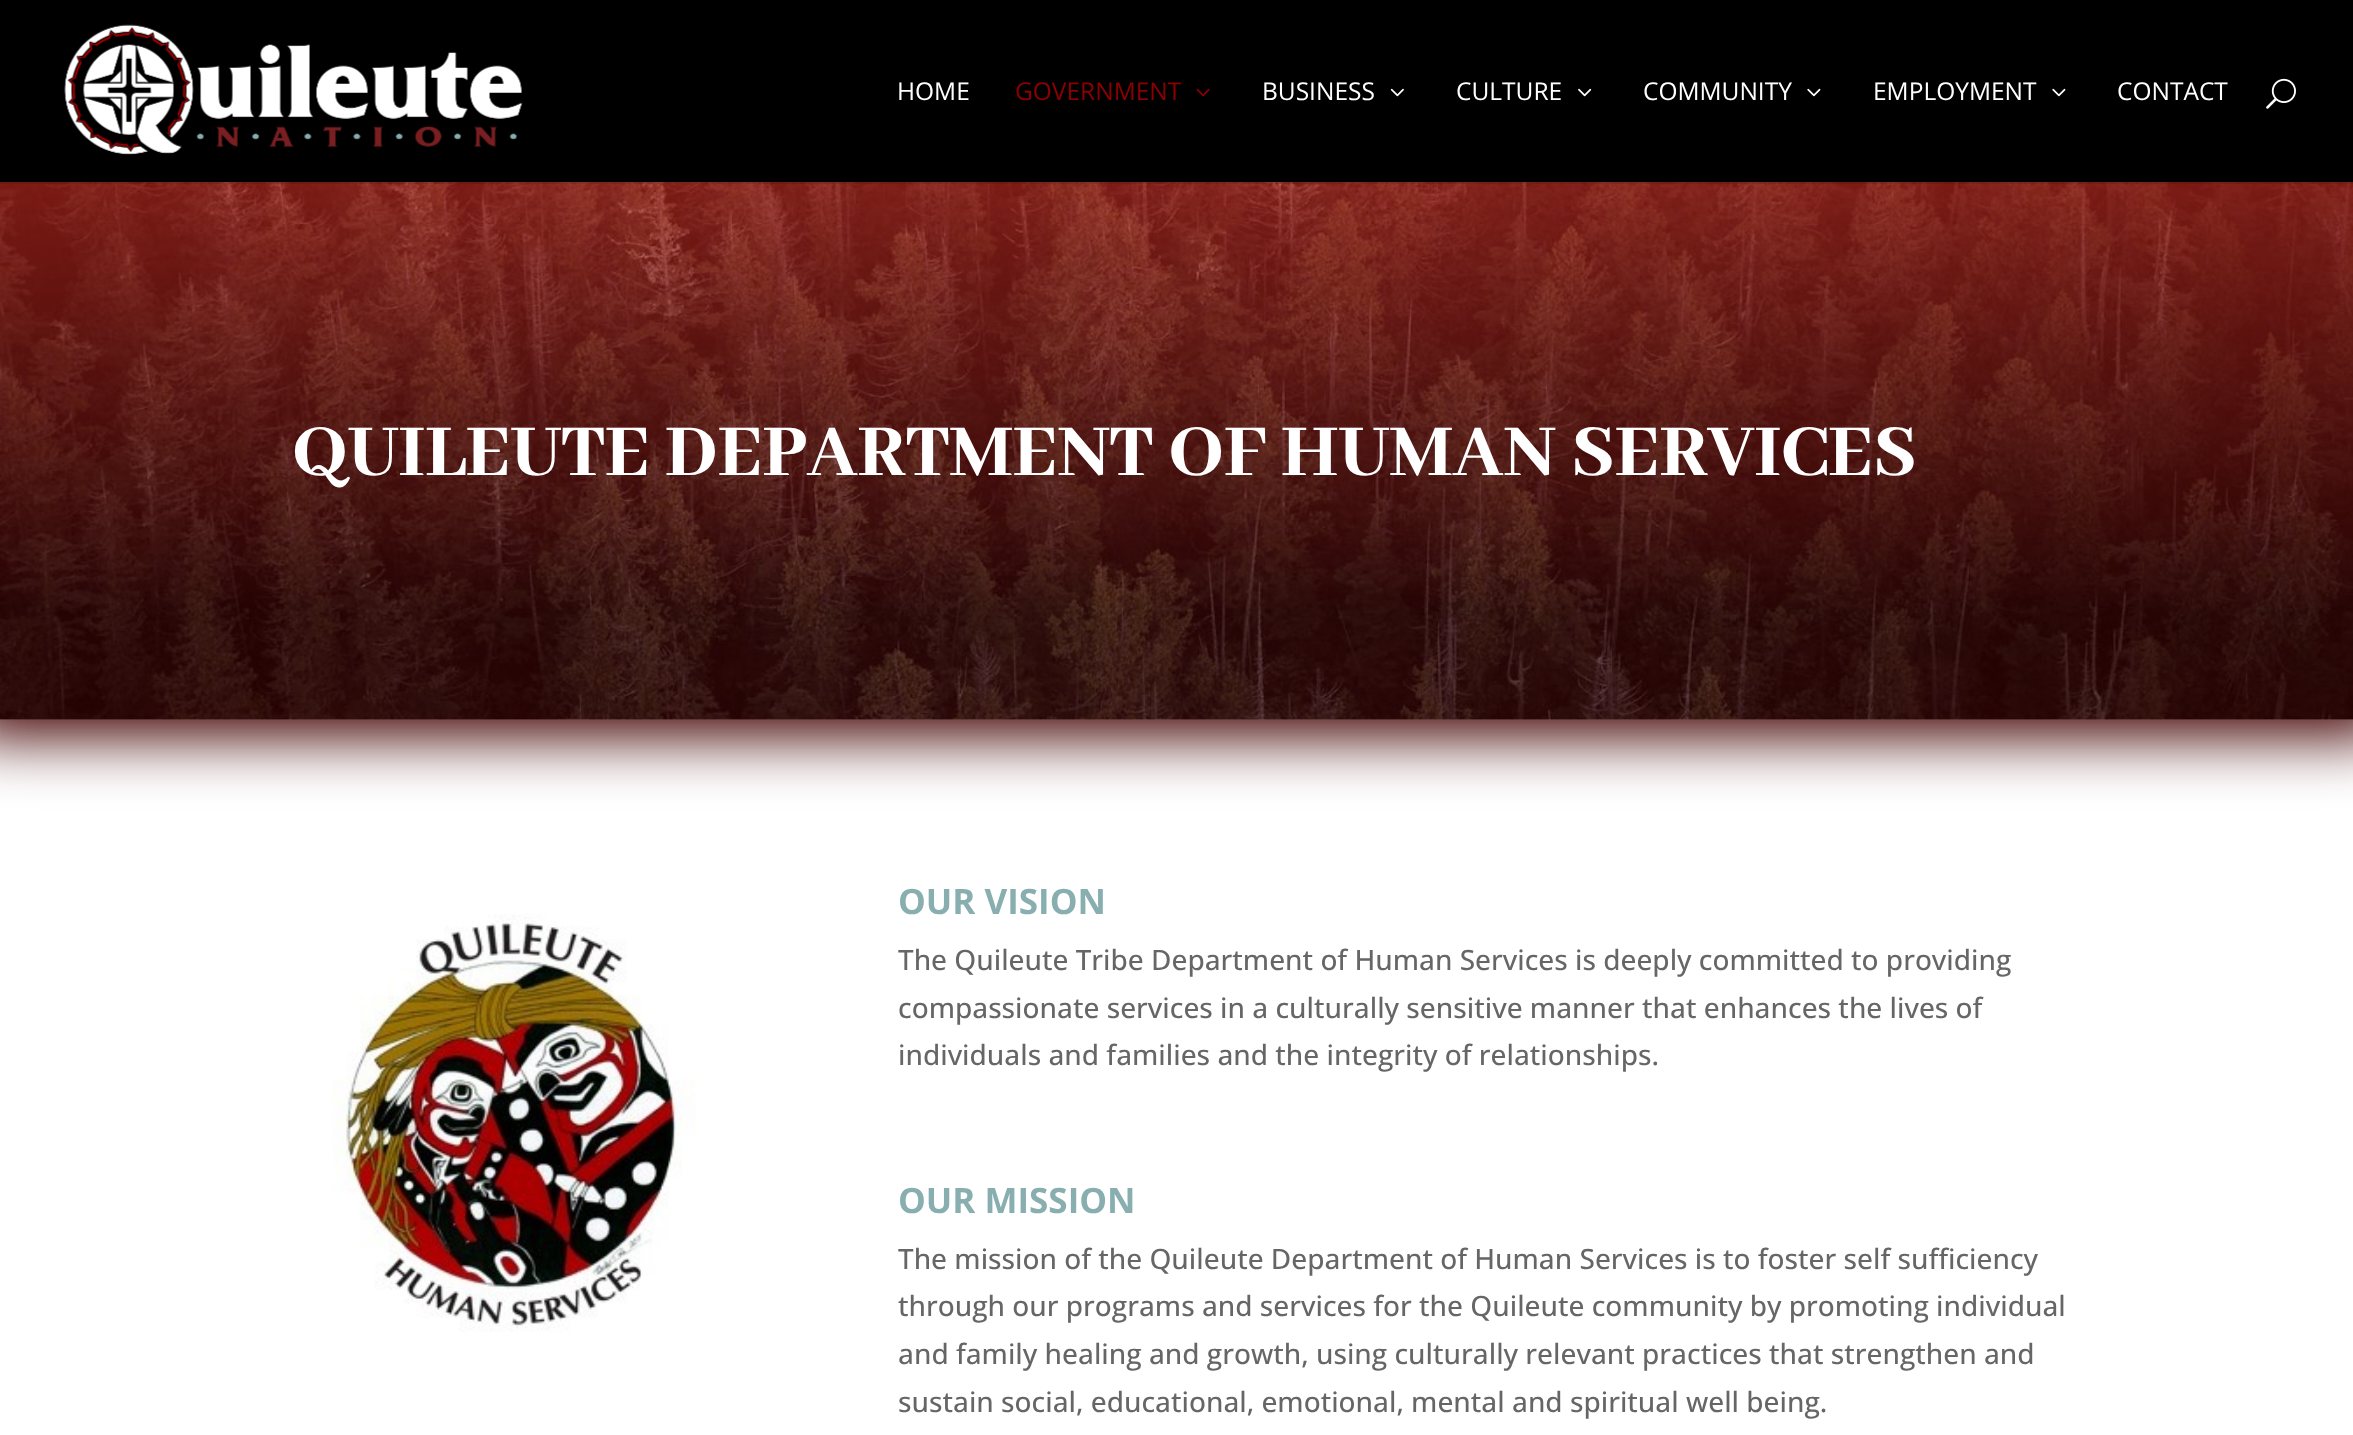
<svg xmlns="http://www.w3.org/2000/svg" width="2353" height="1435">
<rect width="100%" height="100%" fill="#fff"/>
<rect x="-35" y="110" width="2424" height="627" fill="#420000" filter="blur(30.5px)"/>
<image x="0" y="182" width="2353" height="538" href="media/7.png"/>
<path d="M0 182v2h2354v-182v180z" fill="#0000001a"/>
<rect width="2353" height="182" fill="#000"/>
<image x="64" y="24" width="459" height="131" href="media/1.png"/>
<text x="897" y="100" style="font-family:Open Sans;font-size:24.5px;fill:#fff">HOME</text>
<text x="1015" y="100" style="font-family:Open Sans;font-size:24.5px;fill:#8c0001">GOVERNMENT</text>
<image x="1196" y="88" width="14" height="9" href="media/2.png"/>
<text x="1262" y="100" style="font-family:Open Sans;font-size:24.5px;fill:#fff">BUSINESS</text>
<image x="1390" y="88" width="14" height="9" href="media/3.png"/>
<text x="1456" y="100" style="font-family:Open Sans;font-size:24.5px;fill:#fff">CULTURE</text>
<image x="1578" y="88" width="14" height="9" href="media/4.png"/>
<text x="1643" y="100" style="font-family:Open Sans;font-size:24.5px;fill:#fff">COMMUNITY</text>
<image x="1807" y="88" width="14" height="9" href="media/5.png"/>
<text x="1873" y="100" style="font-family:Open Sans;font-size:24.5px;fill:#fff">EMPLOYMENT</text>
<image x="2052" y="88" width="14" height="9" href="media/5.png"/>
<text x="2117" y="100" style="font-family:Open Sans;font-size:24.5px;fill:#fff">CONTACT</text>
<image x="2266" y="78" width="30" height="31" href="media/6.png"/>
<text x="292" y="475" style="font-family:Abhaya Libre ExtraBold;font-size:80.5px;font-weight:800;fill:#fff">QUILEUTE DEPARTMENT OF HUMAN SERVICES</text>
<image x="332" y="914" width="365" height="418" href="media/8.png"/>
<text x="898" y="914" style="font-family:Open Sans;font-size:35px;font-weight:bold;fill:#88aeaf">OUR VISION</text>
<text x="898" y="970" style="font-family:Open Sans;font-size:28px;font-weight:500;fill:#666">The Quileute Tribe Department of Human Services is deeply committed to providing</text>
<text x="898" y="1018" style="font-family:Open Sans;font-size:28px;font-weight:500;fill:#666">compassionate services in a culturally sensitive manner that enhances the lives of</text>
<text x="898" y="1065" style="font-family:Open Sans;font-size:28px;font-weight:500;fill:#666">individuals and families and the integrity of relationships.</text>
<text x="898" y="1213" style="font-family:Open Sans;font-size:35px;font-weight:bold;fill:#88aeaf">OUR MISSION</text>
<text x="898" y="1269" style="font-family:Open Sans;font-size:28px;font-weight:500;fill:#666">The mission of the Quileute Department of Human Services is to foster self sufficiency</text>
<text x="898" y="1316" style="font-family:Open Sans;font-size:28px;font-weight:500;fill:#666">through our programs and services for the Quileute community by promoting individual</text>
<text x="898" y="1364" style="font-family:Open Sans;font-size:28px;font-weight:500;fill:#666">and family healing and growth, using culturally relevant practices that strengthen and</text>
<text x="898" y="1412" style="font-family:Open Sans;font-size:28px;font-weight:500;fill:#666">sustain social, educational, emotional, mental and spiritual well being.</text>
</svg>
